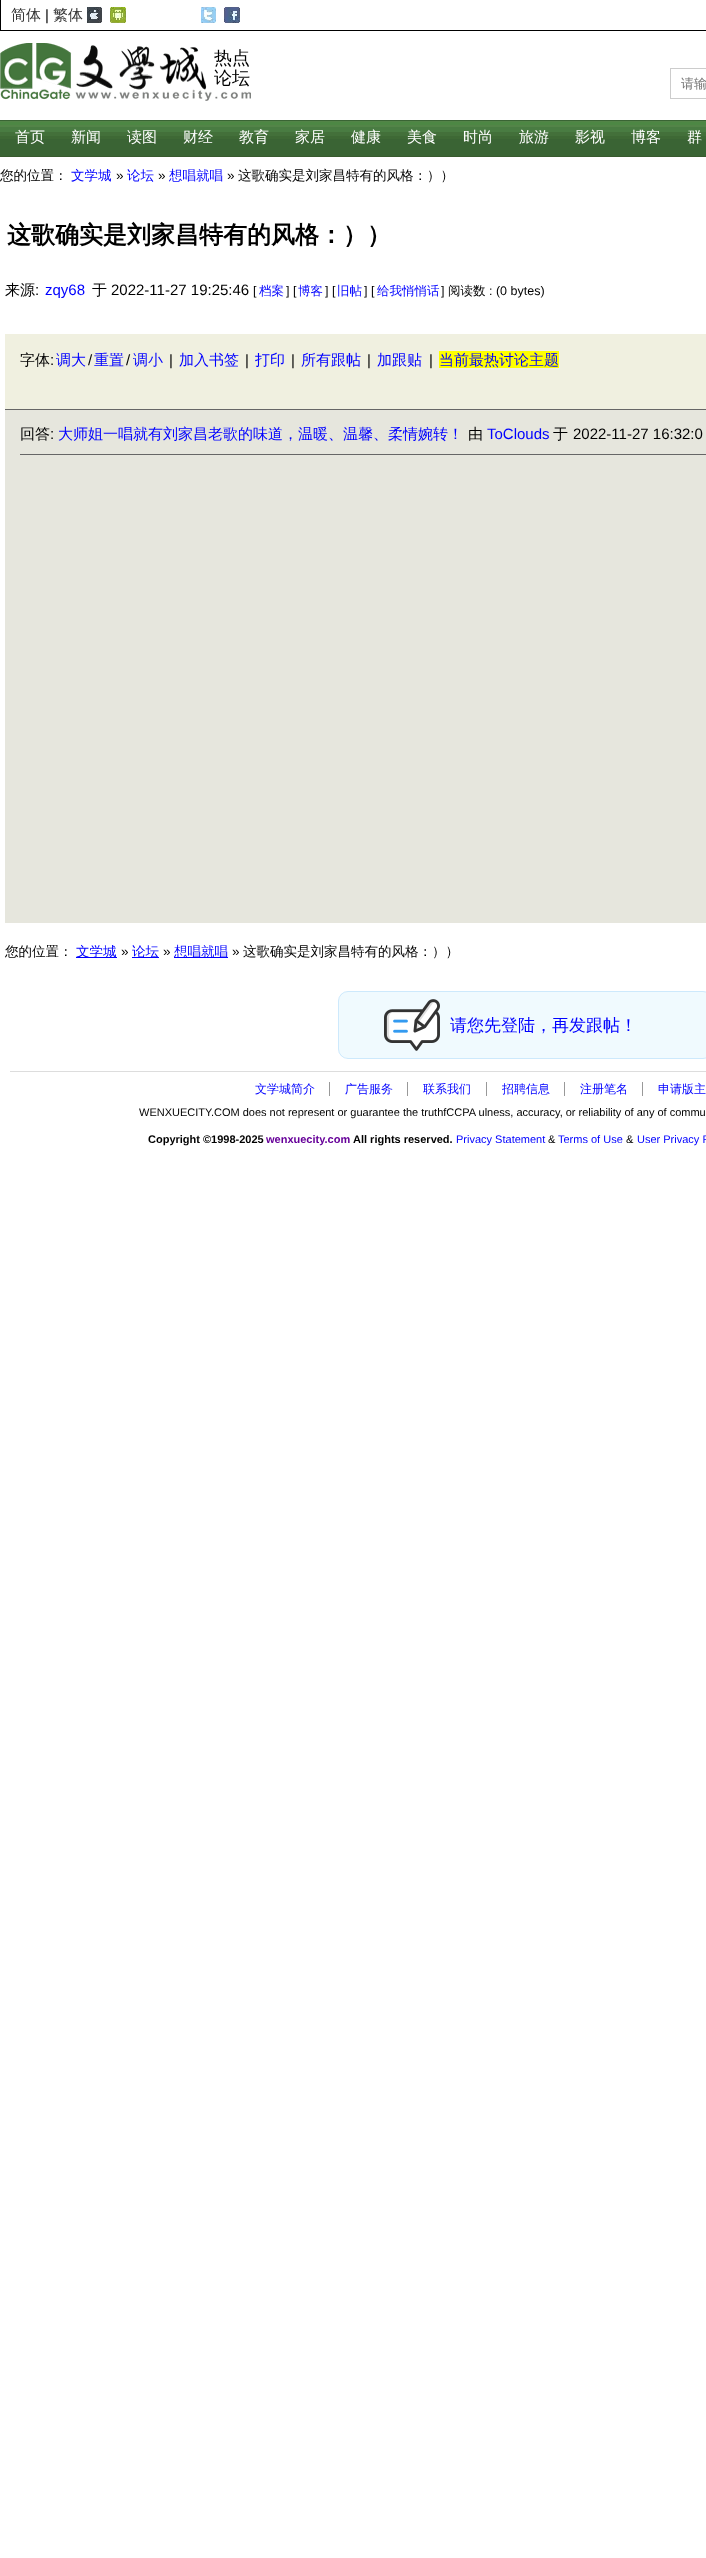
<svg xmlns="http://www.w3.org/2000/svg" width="706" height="2558">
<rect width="100%" height="100%" fill="#fff"/>
<rect y="30" width="706" height="1" fill="#000"/>
<rect width="1" height="31" fill="#000"/>
<text x="11" y="20" style="font-family:WenQuanYi Zen Hei;font-size:15px;font-weight:500;fill:#333">简体</text>
<text x="45" y="20" style="font-family:Liberation Sans;font-size:15px;fill:#000">|</text>
<text x="53" y="20" style="font-family:WenQuanYi Zen Hei;font-size:15px;font-weight:500;fill:#333">繁体</text>
<image x="87" y="7" width="15" height="16" href="media/1.png"/>
<image x="110" y="7" width="16" height="16" href="media/2.png"/>
<image x="201" y="7" width="15" height="16" href="media/3.png"/>
<image x="224" y="7" width="16" height="16" href="media/4.png"/>
<image x="0" y="43" width="251" height="58" href="media/5.png"/>
<text x="214" y="64" style="font-family:WenQuanYi Zen Hei;font-size:18px;font-weight:500;fill:#000">热点</text>
<text x="214" y="84" style="font-family:WenQuanYi Zen Hei;font-size:18px;font-weight:500;fill:#000">论坛</text>
<rect x="670.5" y="68.5" width="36" height="30" fill="none" stroke="#ccc"/>
<text x="681" y="88" style="font-family:WenQuanYi Zen Hei;font-size:13px;font-weight:500;fill:#757575">请输</text>
<image x="0" y="120" width="706" height="37" href="media/6.png"/>
<text x="15" y="142" style="font-family:WenQuanYi Zen Hei;font-size:15px;font-weight:500;fill:#fff">首页</text>
<text x="71" y="142" style="font-family:WenQuanYi Zen Hei;font-size:15px;font-weight:500;fill:#fff">新闻</text>
<text x="127" y="142" style="font-family:WenQuanYi Zen Hei;font-size:15px;font-weight:500;fill:#fff">读图</text>
<text x="183" y="142" style="font-family:WenQuanYi Zen Hei;font-size:15px;font-weight:500;fill:#fff">财经</text>
<text x="239" y="142" style="font-family:WenQuanYi Zen Hei;font-size:15px;font-weight:500;fill:#fff">教育</text>
<text x="295" y="142" style="font-family:WenQuanYi Zen Hei;font-size:15px;font-weight:500;fill:#fff">家居</text>
<text x="351" y="142" style="font-family:WenQuanYi Zen Hei;font-size:15px;font-weight:500;fill:#fff">健康</text>
<text x="407" y="142" style="font-family:WenQuanYi Zen Hei;font-size:15px;font-weight:500;fill:#fff">美食</text>
<text x="463" y="142" style="font-family:WenQuanYi Zen Hei;font-size:15px;font-weight:500;fill:#fff">时尚</text>
<text x="519" y="142" style="font-family:WenQuanYi Zen Hei;font-size:15px;font-weight:500;fill:#fff">旅游</text>
<text x="575" y="142" style="font-family:WenQuanYi Zen Hei;font-size:15px;font-weight:500;fill:#fff">影视</text>
<text x="631" y="142" style="font-family:WenQuanYi Zen Hei;font-size:15px;font-weight:500;fill:#fff">博客</text>
<text x="687" y="142" style="font-family:WenQuanYi Zen Hei;font-size:15px;font-weight:500;fill:#fff">群</text>
<text x="0" y="180" style="font-family:WenQuanYi Zen Hei;font-size:13.5px;font-weight:500;fill:#000">您的位置：</text>
<text x="71" y="180" style="font-family:WenQuanYi Zen Hei;font-size:13.5px;font-weight:500;fill:#00f">文学城</text>
<text x="116" y="180" style="font-family:Liberation Sans;font-size:13.5px;fill:#000">»</text>
<text x="127" y="180" style="font-family:WenQuanYi Zen Hei;font-size:13.5px;font-weight:500;fill:#00f">论坛</text>
<text x="158" y="180" style="font-family:Liberation Sans;font-size:13.5px;fill:#000">»</text>
<text x="169" y="180" style="font-family:WenQuanYi Zen Hei;font-size:13.5px;font-weight:500;fill:#00f">想唱就唱</text>
<text x="227" y="180" style="font-family:Liberation Sans;font-size:13.5px;fill:#000">»</text>
<text x="238" y="180" style="font-family:WenQuanYi Zen Hei;font-size:13.5px;font-weight:500;fill:#000">这歌确实是刘家昌特有的风格：））</text>
<text x="7" y="243" style="font-family:WenQuanYi Zen Hei;font-size:24px;font-weight:bold;fill:#000">这歌确实是刘家昌特有的风格：））</text>
<text x="5" y="295" style="font-family:WenQuanYi Zen Hei;font-size:15px;font-weight:500;fill:#000">来源</text>
<text x="35" y="295" style="font-family:Liberation Sans;font-size:15px;fill:#000">:</text>
<text x="45" y="295" style="font-family:Liberation Sans;font-size:15px;fill:#00f">zqy68</text>
<text x="92" y="295" style="font-family:WenQuanYi Zen Hei;font-size:15px;font-weight:500;fill:#000">于</text>
<text x="111" y="295" style="font-family:Liberation Sans;font-size:15px;fill:#000">2022-11-27 19:25:46</text>
<text x="253" y="295" style="font-family:Liberation Sans;font-size:12.5px;fill:#000">[</text>
<text x="259" y="295" style="font-family:WenQuanYi Zen Hei;font-size:12.5px;font-weight:500;fill:#00f">档案</text>
<text x="286" y="295" style="font-family:Liberation Sans;font-size:12.5px;fill:#000">] [</text>
<text x="298" y="295" style="font-family:WenQuanYi Zen Hei;font-size:12.5px;font-weight:500;fill:#00f">博客</text>
<text x="325" y="295" style="font-family:Liberation Sans;font-size:12.5px;fill:#000">] [</text>
<text x="337" y="295" style="font-family:WenQuanYi Zen Hei;font-size:12.5px;font-weight:500;fill:#00f">旧帖</text>
<text x="364" y="295" style="font-family:Liberation Sans;font-size:12.5px;fill:#000">] [</text>
<text x="377" y="295" style="font-family:WenQuanYi Zen Hei;font-size:12.5px;font-weight:500;fill:#00f">给我悄悄话</text>
<text x="441" y="295" style="font-family:Liberation Sans;font-size:12.5px;fill:#000">]</text>
<text x="448" y="295" style="font-family:WenQuanYi Zen Hei;font-size:12.5px;font-weight:500;fill:#000">阅读数</text>
<text x="489" y="295" style="font-family:Liberation Sans;font-size:12.5px;fill:#000">: (0 bytes)</text>
<rect x="5" y="334" width="701" height="75" fill="#f0f0e0"/>
<text x="20" y="365" style="font-family:WenQuanYi Zen Hei;font-size:15px;font-weight:500;fill:#000">字体</text>
<text x="50" y="365" style="font-family:Liberation Sans;font-size:15px;fill:#000">:</text>
<text x="56" y="365" style="font-family:WenQuanYi Zen Hei;font-size:15px;font-weight:500;fill:#00f">调大</text>
<text x="88" y="365" style="font-family:Liberation Sans;font-size:15px;fill:#000">/</text>
<text x="94" y="365" style="font-family:WenQuanYi Zen Hei;font-size:15px;font-weight:500;fill:#00f">重置</text>
<text x="126" y="365" style="font-family:Liberation Sans;font-size:15px;fill:#000">/</text>
<text x="133" y="365" style="font-family:WenQuanYi Zen Hei;font-size:15px;font-weight:500;fill:#00f">调小</text>
<text x="169" y="365" style="font-family:Liberation Sans;font-size:15px;fill:#000">|</text>
<text x="179" y="365" style="font-family:WenQuanYi Zen Hei;font-size:15px;font-weight:500;fill:#00f">加入书签</text>
<text x="245" y="365" style="font-family:Liberation Sans;font-size:15px;fill:#000">|</text>
<text x="255" y="365" style="font-family:WenQuanYi Zen Hei;font-size:15px;font-weight:500;fill:#00f">打印</text>
<text x="291" y="365" style="font-family:Liberation Sans;font-size:15px;fill:#000">|</text>
<text x="301" y="365" style="font-family:WenQuanYi Zen Hei;font-size:15px;font-weight:500;fill:#00f">所有跟帖</text>
<text x="367" y="365" style="font-family:Liberation Sans;font-size:15px;fill:#000">|</text>
<text x="377" y="365" style="font-family:WenQuanYi Zen Hei;font-size:15px;font-weight:500;fill:#00f">加跟贴</text>
<text x="429" y="365" style="font-family:Liberation Sans;font-size:15px;fill:#000">|</text>
<rect x="439" y="351" width="120" height="17" fill="#ff0"/>
<text x="439" y="365" style="font-family:WenQuanYi Zen Hei;font-size:15px;font-weight:500;fill:#00f">当前最热讨论主题</text>
<rect x="5" y="410" width="701" height="513" fill="#e6e6dd"/>
<rect x="5" y="409" width="701" height="1" fill="#666"/>
<rect x="20" y="454" width="686" height="1" fill="#666"/>
<text x="20" y="439" style="font-family:WenQuanYi Zen Hei;font-size:15px;font-weight:500;fill:#000">回答</text>
<text x="50" y="439" style="font-family:Liberation Sans;font-size:15px;fill:#000">:</text>
<text x="58" y="439" style="font-family:WenQuanYi Zen Hei;font-size:15px;font-weight:500;fill:#00f">大师姐一唱就有刘家昌老歌的味道，温暖、温馨、柔情婉转！</text>
<text x="468" y="439" style="font-family:WenQuanYi Zen Hei;font-size:15px;font-weight:500;fill:#000">由</text>
<text x="487" y="439" style="font-family:Liberation Sans;font-size:15px;fill:#00f">ToClouds</text>
<text x="553" y="439" style="font-family:WenQuanYi Zen Hei;font-size:15px;font-weight:500;fill:#000">于</text>
<text x="573" y="439" style="font-family:Liberation Sans;font-size:15px;fill:#000">2022-11-27 16:32:0</text>
<text x="5" y="956" style="font-family:WenQuanYi Zen Hei;font-size:13.5px;font-weight:500;fill:#000">您的位置：</text>
<rect x="76" y="957" width="41" height="1" fill="#00f"/>
<text x="76" y="956" style="font-family:WenQuanYi Zen Hei;font-size:13.5px;font-weight:500;fill:#00f">文学城</text>
<text x="121" y="956" style="font-family:Liberation Sans;font-size:13.5px;fill:#000">»</text>
<rect x="132" y="957" width="27" height="1" fill="#00f"/>
<text x="132" y="956" style="font-family:WenQuanYi Zen Hei;font-size:13.5px;font-weight:500;fill:#00f">论坛</text>
<text x="163" y="956" style="font-family:Liberation Sans;font-size:13.5px;fill:#000">»</text>
<rect x="174" y="957" width="54" height="1" fill="#00f"/>
<text x="174" y="956" style="font-family:WenQuanYi Zen Hei;font-size:13.5px;font-weight:500;fill:#00f">想唱就唱</text>
<text x="232" y="956" style="font-family:Liberation Sans;font-size:13.5px;fill:#000">»</text>
<text x="243" y="956" style="font-family:WenQuanYi Zen Hei;font-size:13.5px;font-weight:500;fill:#000">这歌确实是刘家昌特有的风格：））</text>
<rect x="338" y="991" width="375" height="68" rx="10" fill="#f0fafe"/>
<rect x="338.5" y="991.5" width="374" height="67" rx="9.5" fill="none" stroke="#2196f32b"/>
<image x="384" y="999" width="56" height="52" href="media/7.png"/>
<text x="450" y="1031" style="font-family:WenQuanYi Zen Hei;font-size:17px;font-weight:500;fill:#00f">请您先登陆，再发跟帖！</text>
<rect x="10" y="1071" width="696" height="1" fill="#ddd"/>
<rect x="329" y="1082" width="1" height="14" fill="#999"/>
<text x="255" y="1093" style="font-family:WenQuanYi Zen Hei;font-size:12px;font-weight:500;fill:#00f">文学城简介</text>
<rect x="407" y="1082" width="1" height="14" fill="#999"/>
<text x="345" y="1093" style="font-family:WenQuanYi Zen Hei;font-size:12px;font-weight:500;fill:#00f">广告服务</text>
<rect x="486" y="1082" width="1" height="14" fill="#999"/>
<text x="423" y="1093" style="font-family:WenQuanYi Zen Hei;font-size:12px;font-weight:500;fill:#00f">联系我们</text>
<rect x="564" y="1082" width="1" height="14" fill="#999"/>
<text x="502" y="1093" style="font-family:WenQuanYi Zen Hei;font-size:12px;font-weight:500;fill:#00f">招聘信息</text>
<rect x="642" y="1082" width="1" height="14" fill="#999"/>
<text x="580" y="1093" style="font-family:WenQuanYi Zen Hei;font-size:12px;font-weight:500;fill:#00f">注册笔名</text>
<text x="658" y="1093" style="font-family:WenQuanYi Zen Hei;font-size:12px;font-weight:500;fill:#00f">申请版主</text>
<text x="139" y="1116" style="font-family:Liberation Sans;font-size:11px;fill:#000">WENXUECITY.COM does not represent or guarantee the truthfCCPA ulness, accuracy, or reliability of any of commu</text>
<text x="148" y="1143" style="font-family:Liberation Sans;font-size:11px;font-weight:bold;fill:#000">Copyright ©1998-2025</text>
<text x="266" y="1143" style="font-family:Liberation Sans;font-size:11px;font-weight:bold;fill:#609">wenxuecity.com</text>
<text x="353" y="1143" style="font-family:Liberation Sans;font-size:11px;font-weight:bold;fill:#000">All rights reserved.</text>
<text x="456" y="1143" style="font-family:Liberation Sans;font-size:11px;fill:#00f">Privacy Statement</text>
<text x="548" y="1143" style="font-family:Liberation Sans;font-size:11px;fill:#000">&amp;</text>
<text x="558" y="1143" style="font-family:Liberation Sans;font-size:11px;fill:#00f">Terms of Use</text>
<text x="626" y="1143" style="font-family:Liberation Sans;font-size:11px;fill:#000">&amp;</text>
<text x="637" y="1143" style="font-family:Liberation Sans;font-size:11px;fill:#00f">User Privacy P</text>
</svg>
